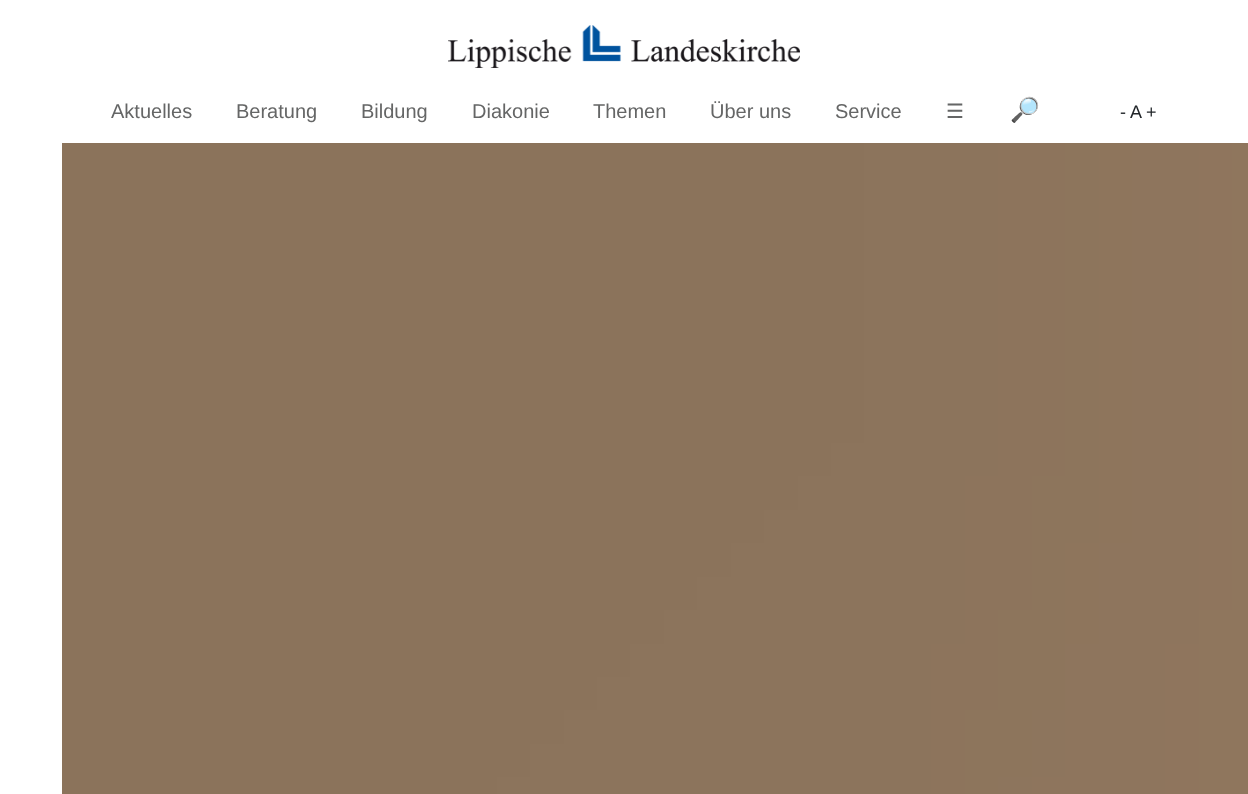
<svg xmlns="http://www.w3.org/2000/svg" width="1248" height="794">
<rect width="100%" height="100%" fill="#fff"/>
<image x="448" y="25" width="352" height="43" href="media/1.png"/>
<text x="111" y="118" style="font-family:Liberation Sans;font-size:20px;fill:#656666">Aktuelles</text>
<text x="236" y="118" style="font-family:Liberation Sans;font-size:20px;fill:#656666">Beratung</text>
<text x="361" y="118" style="font-family:Liberation Sans;font-size:20px;fill:#656666">Bildung</text>
<text x="472" y="118" style="font-family:Liberation Sans;font-size:20px;fill:#656666">Diakonie</text>
<text x="593" y="118" style="font-family:Liberation Sans;font-size:20px;fill:#656666">Themen</text>
<text x="710" y="118" style="font-family:Liberation Sans;font-size:20px;fill:#656666">Über uns</text>
<text x="835" y="118" style="font-family:Liberation Sans;font-size:20px;fill:#656666">Service</text>
<text x="946" y="118" style="font-family:DejaVu Sans;font-size:20px;fill:#656666">☰</text>
<text x="1010" y="118" style="font-family:Noto Color Emoji;font-size:24px;fill:#757575">🔎</text>
<text x="1120" y="118" style="font-family:Liberation Sans;font-size:18px;fill:#212529">-</text>
<text x="1130" y="118" style="font-family:Liberation Sans;font-size:18px;fill:#212529">A +</text>
<image x="62" y="143" width="1186" height="651" href="media/2.png"/>
</svg>
